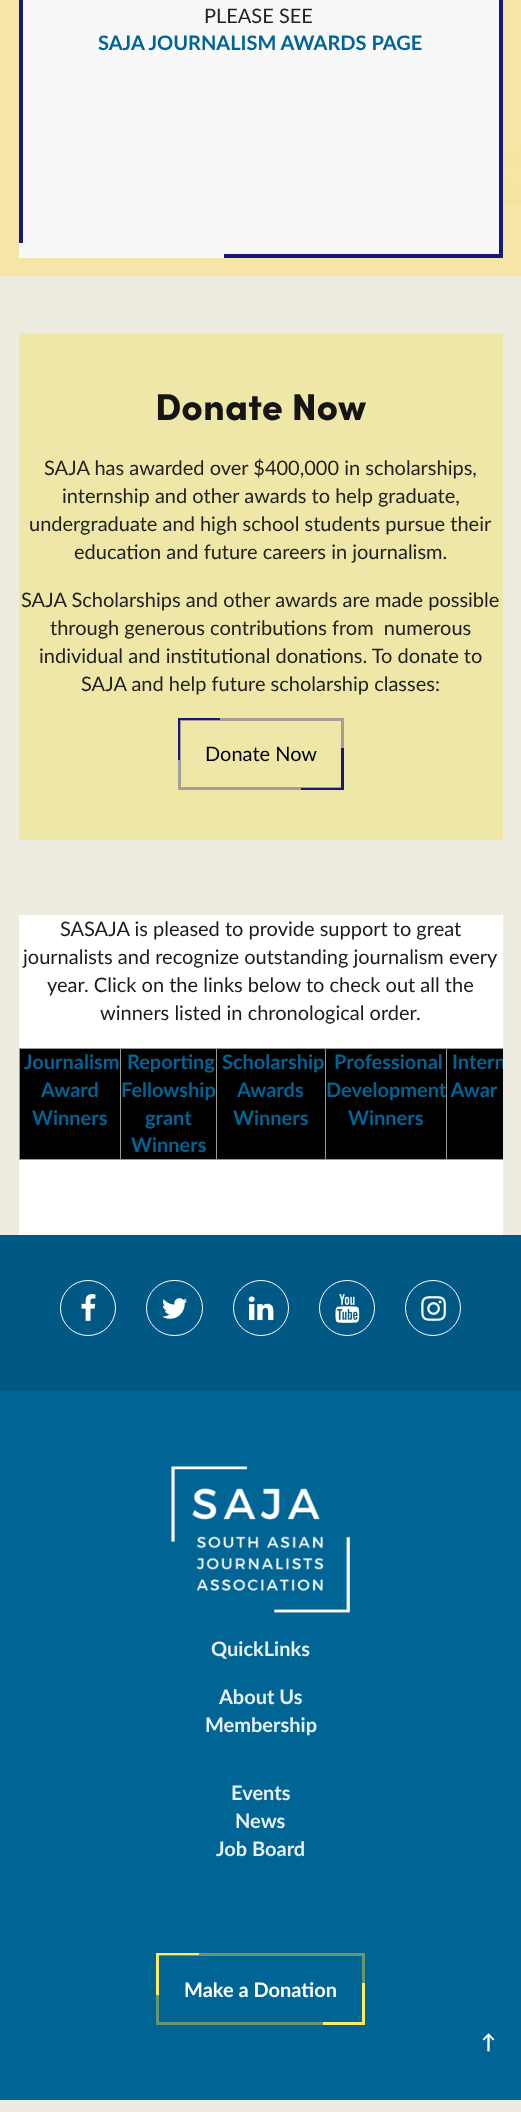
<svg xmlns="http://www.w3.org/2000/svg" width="521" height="2112">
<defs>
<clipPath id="clip1"><rect x="301" y="748" width="43" height="42"/></clipPath>
<clipPath id="clip2"><rect x="178" y="718" width="42" height="42"/></clipPath>
<clipPath id="clip3"><rect x="19" y="915" width="484" height="320"/></clipPath>
<clipPath id="clip4"><rect x="323" y="1983" width="42" height="42"/></clipPath>
<clipPath id="clip5"><rect x="156" y="1953" width="43" height="42"/></clipPath>
</defs>
<rect width="100%" height="100%" fill="#eeece0"/>
<rect width="521" height="148" fill="#f5e6a7"/>
<image x="0" y="148" width="521" height="129" href="media/7.png"/>
<rect x="19" width="480" height="258" fill="#f8f8f8"/>
<rect x="19" width="4" height="243" fill="#171879"/>
<rect x="499" width="4" height="258" fill="#171879"/>
<rect x="224" y="254" width="279" height="4" fill="#171879"/>
<text x="204" y="23" style="font-family:Lato;font-size:20px;fill:#222">PLEASE SEE</text>
<text x="98" y="50" style="font-family:Lato;font-size:20px;font-weight:bold;fill:#006495">SAJA JOURNALISM AWARDS PAGE</text>
<rect x="19" y="333" width="484" height="507" fill="#eee7a8"/>
<text x="155" y="420" style="font-family:Sofia;font-size:37.5px;font-weight:900;fill:#151515">Donate Now</text>
<text x="44" y="475" style="font-family:Lato;font-size:20px;fill:#222">SAJA has awarded over $400,000 in scholarships,</text>
<text x="62" y="503" style="font-family:Lato;font-size:20px;fill:#222">internship and other awards to help graduate,</text>
<text x="29" y="531" style="font-family:Lato;font-size:20px;fill:#222">undergraduate and high school students pursue their</text>
<text x="74" y="559" style="font-family:Lato;font-size:20px;fill:#222">education and future careers in journalism.</text>
<text x="21" y="607" style="font-family:Lato;font-size:20px;fill:#222">SAJA Scholarships and other awards are made possible</text>
<text x="50" y="635" style="font-family:Lato;font-size:20px;fill:#222" xml:space="preserve">through generous contributions from  numerous</text>
<text x="39" y="663" style="font-family:Lato;font-size:20px;fill:#222">individual and institutional donations. To donate to</text>
<text x="81" y="691" style="font-family:Lato;font-size:20px;fill:#222">SAJA and help future scholarship classes:</text>
<g clip-path="url(#clip1)">
<path d="M341 788v-91c50 0 90 41 90 91c0 49-40 90-90 90c-50 0-90-41-90-90z" fill="#171878"/>
</g>
<g clip-path="url(#clip2)">
<path d="M180 720v90c-50 0-90-40-90-90c0-50 40-90 90-90c50 0 90 40 90 90z" fill="#171878"/>
</g>
<rect x="179.5" y="719.5" width="163" height="69" fill="none" stroke="#17197859" stroke-width="3"/>
<text x="205" y="761" style="font-family:Lato;font-size:20px;fill:#000">Donate Now</text>
<rect x="19" y="915" width="484" height="320" fill="#fff"/>
<text x="60" y="936" style="font-family:Lato;font-size:20px;fill:#222">SA</text>
<text x="84" y="936" style="font-family:Lato;font-size:20px;fill:#191b1c">SAJA is pleased to provide support to great</text>
<text x="23" y="964" style="font-family:Lato;font-size:20px;fill:#191b1c">journalists and recognize outstanding journalism every</text>
<text x="47" y="992" style="font-family:Lato;font-size:20px;fill:#191b1c">year. Click on the links below to check out all the</text>
<text x="100" y="1020" style="font-family:Lato;font-size:20px;fill:#191b1c">winners listed in chronological order.</text>
<rect x="19" y="1048" width="484" height="1" fill="#999"/>
<rect x="19" y="1159" width="484" height="1" fill="#999"/>
<rect x="19" y="1048" width="1" height="112" fill="#999"/>
<rect x="20" y="1049" width="100" height="110" fill="#000"/>
<text x="24" y="1069" style="font-family:Lato;font-size:20px;font-weight:bold;fill:#006495">Journalism</text>
<text x="41" y="1097" style="font-family:Lato;font-size:20px;font-weight:bold;fill:#006495">Award</text>
<text x="32" y="1125" style="font-family:Lato;font-size:20px;font-weight:bold;fill:#006495">Winners</text>
<rect x="121" y="1049" width="95" height="110" fill="#000"/>
<rect x="120" y="1048" width="1" height="112" fill="#999"/>
<text x="127" y="1069" style="font-family:Lato;font-size:20px;font-weight:bold;fill:#006495">Reporting</text>
<text x="121" y="1097" style="font-family:Lato;font-size:20px;font-weight:bold;fill:#006495">Fellowship</text>
<text x="145" y="1125" style="font-family:Lato;font-size:20px;font-weight:bold;fill:#006495">grant</text>
<text x="131" y="1152" style="font-family:Lato;font-size:20px;font-weight:bold;fill:#006495">Winners</text>
<rect x="217" y="1049" width="108" height="110" fill="#000"/>
<rect x="216" y="1048" width="1" height="112" fill="#999"/>
<text x="222" y="1069" style="font-family:Lato;font-size:20px;font-weight:bold;fill:#006495">Scholarship</text>
<text x="237" y="1097" style="font-family:Lato;font-size:20px;font-weight:bold;fill:#006495">Awards</text>
<text x="233" y="1125" style="font-family:Lato;font-size:20px;font-weight:bold;fill:#006495">Winners</text>
<rect x="326" y="1049" width="120" height="110" fill="#000"/>
<rect x="325" y="1048" width="1" height="112" fill="#999"/>
<text x="334" y="1069" style="font-family:Lato;font-size:20px;font-weight:bold;fill:#006495">Professional</text>
<rect x="447" y="1049" width="56" height="110" fill="#000"/>
<rect x="446" y="1048" width="1" height="112" fill="#999"/>
<text x="326" y="1097" style="font-family:Lato;font-size:20px;font-weight:bold;fill:#006495">Development Awar</text>
<text x="348" y="1125" style="font-family:Lato;font-size:20px;font-weight:bold;fill:#006495">Winners</text>
<g clip-path="url(#clip3)">
<text x="452" y="1069" style="font-family:Lato;font-size:20px;font-weight:bold;fill:#006495">Intern</text>
</g>
<rect y="1235" width="521" height="156" fill="#005985"/>
<circle cx="88" cy="1308" r="27.5" fill="none" stroke="#fff"/>
<image x="81" y="1294" width="15" height="27" href="media/1.png"/>
<rect x="146.5" y="1280.5" width="56" height="55" rx="27.5" fill="none" stroke="#fff"/>
<image x="162" y="1298" width="26" height="21" href="media/2.png"/>
<circle cx="261" cy="1308" r="27.5" fill="none" stroke="#fff"/>
<image x="248" y="1296" width="26" height="25" href="media/3.png"/>
<circle cx="347" cy="1308" r="27.5" fill="none" stroke="#fff"/>
<image x="335" y="1294" width="25" height="29" href="media/4.png"/>
<circle cx="433" cy="1308" r="27.5" fill="none" stroke="#fff"/>
<image x="421" y="1296" width="25" height="25" href="media/5.png"/>
<rect y="1391" width="521" height="709" fill="#006495"/>
<image x="171" y="1466" width="179" height="147" href="media/6.png"/>
<text x="211" y="1656" style="font-family:Lato;font-size:20px;font-weight:bold;fill:#e6f0f4">QuickLinks</text>
<text x="219" y="1704" style="font-family:Lato;font-size:20px;font-weight:bold;fill:#e6f0f4">About Us</text>
<text x="205" y="1732" style="font-family:Lato;font-size:20px;font-weight:bold;fill:#e6f0f4">Membership</text>
<text x="231" y="1800" style="font-family:Lato;font-size:20px;font-weight:bold;fill:#e6f0f4">Events</text>
<text x="235" y="1828" style="font-family:Lato;font-size:20px;font-weight:bold;fill:#e6f0f4">News</text>
<text x="216" y="1856" style="font-family:Lato;font-size:20px;font-weight:bold;fill:#e6f0f4">Job Board</text>
<g clip-path="url(#clip4)">
<path d="M362 2022v-90c50 0 91 41 91 90c0 50-41 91-91 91c-49 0-90-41-90-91z" fill="#fff079"/>
</g>
<g clip-path="url(#clip5)">
<path d="M159 1955v90c-50 0-90-40-90-90c0-50 40-90 90-90c50 0 90 40 90 90z" fill="#fff079"/>
</g>
<rect x="157.5" y="1954.5" width="206" height="69" fill="none" stroke="#fee43966" stroke-width="3"/>
<text x="184" y="1997" style="font-family:Lato;font-size:20px;font-weight:bold;fill:#fff">Make a Donation</text>
<text x="481" y="2049" style="font-family:Lato;font-size:20px;font-weight:bold;fill:#fff">↑</text>
</svg>
